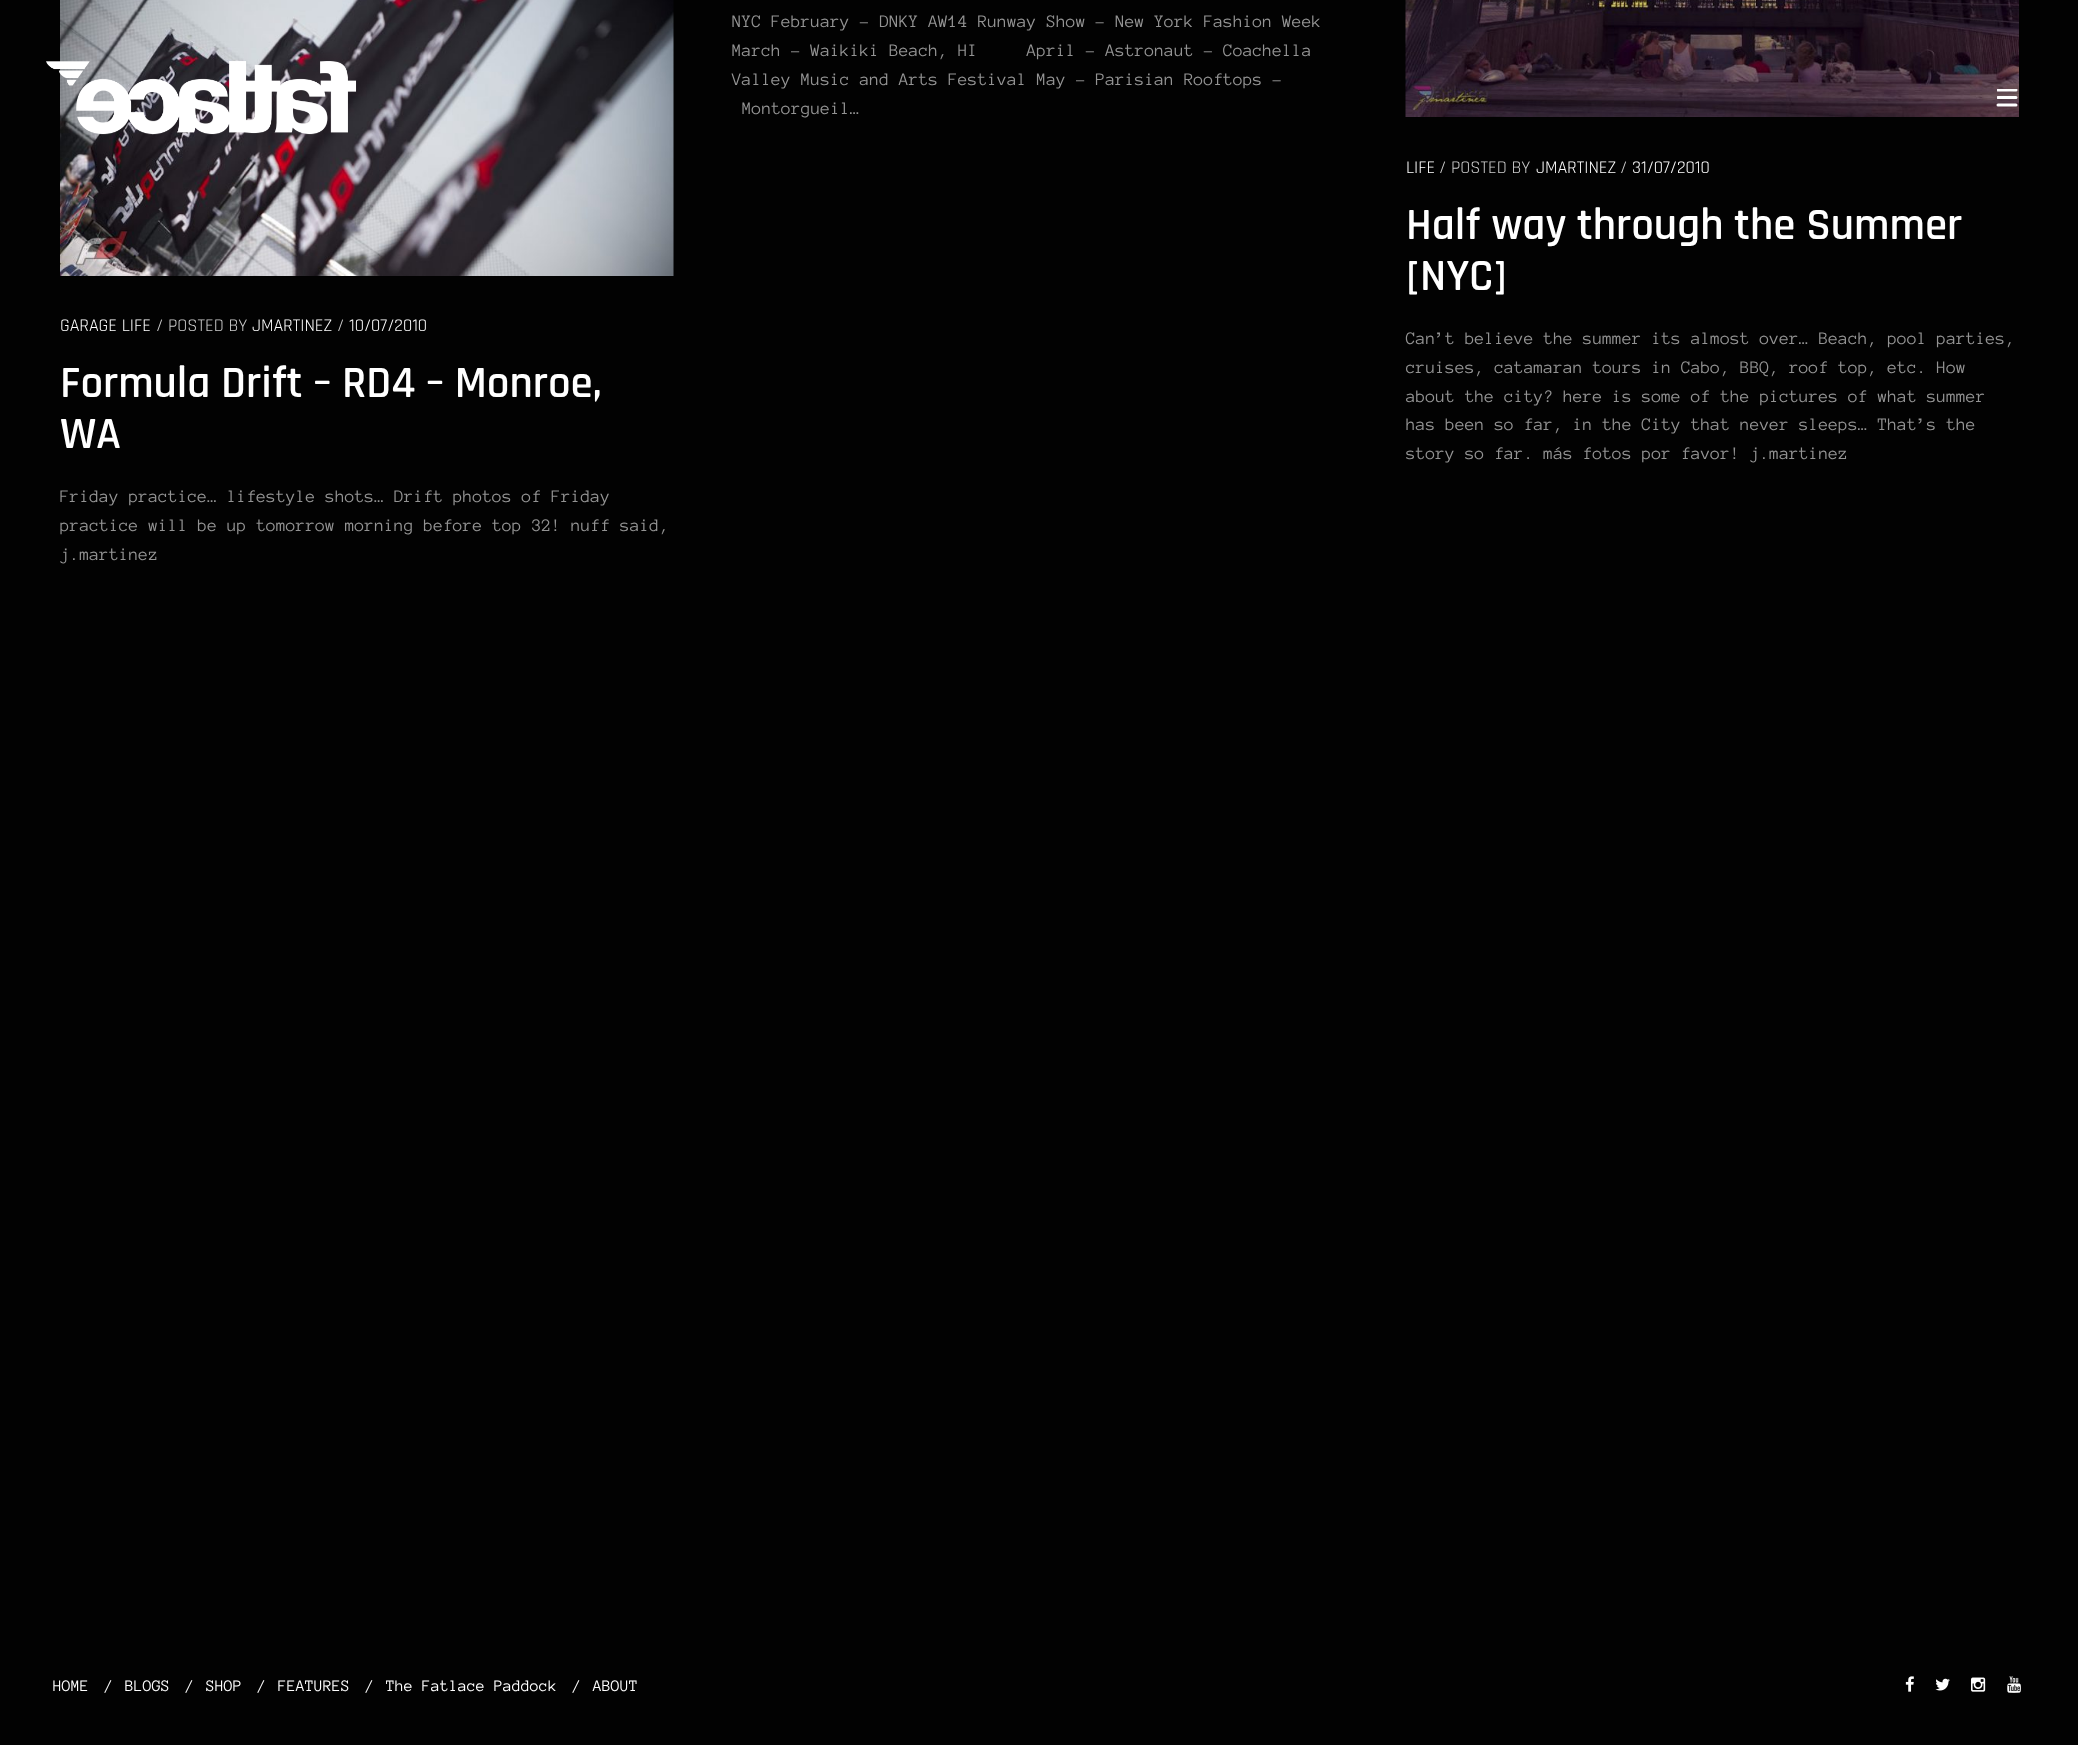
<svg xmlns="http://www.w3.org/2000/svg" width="2078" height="1745">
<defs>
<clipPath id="clip1"><rect x="1997" y="89" width="30" height="18"/></clipPath>
</defs>
<rect width="100%" height="100%" fill="#020202"/>
<text x="732" y="27" style="font-family:Anonymous Pro;font-size:18px;fill:#939393">NYC February – DNKY AW14 Runway Show – New York Fashion Week</text>
<text x="732" y="56" style="font-family:Anonymous Pro;font-size:18px;fill:#939393" xml:space="preserve">March – Waikiki Beach, HI     April – Astronaut – Coachella</text>
<text x="732" y="85" style="font-family:Anonymous Pro;font-size:18px;fill:#939393">Valley Music and Arts Festival May – Parisian Rooftops –</text>
<text x="742" y="114" style="font-family:Anonymous Pro;font-size:18px;fill:#939393">Montorgueil…</text>
<image x="60" y="0" width="614" height="276" href="media/1.png"/>
<text x="60" y="331" style="font-family:Rajdhani;font-size:18px;fill:#fff">GARAGE LIFE</text>
<text x="156" y="331" style="font-family:Rajdhani;font-size:18px;fill:#ccc">/ POSTED BY</text>
<text x="252" y="331" style="font-family:Rajdhani;font-size:18px;fill:#fff">JMARTINEZ</text>
<text x="337" y="331" style="font-family:Rajdhani;font-size:18px;fill:#ccc">/</text>
<text x="349" y="331" style="font-family:Rajdhani;font-size:18px;fill:#fff">10/07/2010</text>
<text x="60" y="397" style="font-family:Rajdhani;font-size:45px;font-weight:600;fill:#fff">Formula Drift – RD4 – Monroe,</text>
<text x="60" y="448" style="font-family:Rajdhani;font-size:45px;font-weight:600;fill:#fff">WA</text>
<text x="60" y="502" style="font-family:Anonymous Pro;font-size:18px;fill:#939393">Friday practice… lifestyle shots… Drift photos of Friday</text>
<text x="60" y="531" style="font-family:Anonymous Pro;font-size:18px;fill:#939393">practice will be up tomorrow morning before top 32! nuff said,</text>
<text x="60" y="560" style="font-family:Anonymous Pro;font-size:18px;fill:#939393">j.martinez</text>
<image x="1405" y="0" width="614" height="117" href="media/2.png"/>
<text x="1406" y="173" style="font-family:Rajdhani;font-size:18px;fill:#fff">LIFE</text>
<text x="1439" y="173" style="font-family:Rajdhani;font-size:18px;fill:#ccc">/ POSTED BY</text>
<text x="1536" y="173" style="font-family:Rajdhani;font-size:18px;fill:#fff">JMARTINEZ</text>
<text x="1620" y="173" style="font-family:Rajdhani;font-size:18px;fill:#ccc">/</text>
<text x="1632" y="173" style="font-family:Rajdhani;font-size:18px;fill:#fff">31/07/2010</text>
<text x="1406" y="239" style="font-family:Rajdhani;font-size:45px;font-weight:600;fill:#fff">Half way through the Summer</text>
<text x="1406" y="290" style="font-family:Rajdhani;font-size:45px;font-weight:600;fill:#fff">[NYC]</text>
<text x="1406" y="344" style="font-family:Anonymous Pro;font-size:18px;fill:#939393">Can’t believe the summer its almost over… Beach, pool parties,</text>
<text x="1406" y="373" style="font-family:Anonymous Pro;font-size:18px;fill:#939393">cruises, catamaran tours in Cabo, BBQ, roof top, etc. How</text>
<text x="1406" y="402" style="font-family:Anonymous Pro;font-size:18px;fill:#939393">about the city? here is some of the pictures of what summer</text>
<text x="1406" y="430" style="font-family:Anonymous Pro;font-size:18px;fill:#939393">has been so far, in the City that never sleeps… That’s the</text>
<text x="1406" y="459" style="font-family:Anonymous Pro;font-size:18px;fill:#939393">story so far. más fotos por favor! j.martinez</text>
<image x="46" y="61" width="311" height="74" href="media/3.png"/>
<g clip-path="url(#clip1)">
<path d="M1998 90h18m-18 7.5h18" fill="none" stroke="#fff" stroke-width="3" stroke-linecap="round" stroke-linejoin="round"/>
</g>
<path d="M1998 105h18" fill="none" stroke="#fff" stroke-width="3" stroke-linecap="round" stroke-linejoin="round"/>
<text x="53" y="1691" style="font-family:Anonymous Pro;font-size:16.5px;fill:#fff">HOME</text>
<text x="104" y="1691" style="font-family:Anonymous Pro;font-size:16.5px;fill:#fff">/</text>
<text x="125" y="1691" style="font-family:Anonymous Pro;font-size:16.5px;fill:#fff">BLOGS</text>
<text x="185" y="1691" style="font-family:Anonymous Pro;font-size:16.5px;fill:#fff">/</text>
<text x="206" y="1691" style="font-family:Anonymous Pro;font-size:16.5px;fill:#fff">SHOP</text>
<text x="257" y="1691" style="font-family:Anonymous Pro;font-size:16.5px;fill:#fff">/</text>
<text x="278" y="1691" style="font-family:Anonymous Pro;font-size:16.5px;fill:#fff">FEATURES</text>
<text x="365" y="1691" style="font-family:Anonymous Pro;font-size:16.5px;fill:#fff">/</text>
<text x="386" y="1691" style="font-family:Anonymous Pro;font-size:16.5px;fill:#fff">The Fatlace Paddock</text>
<text x="572" y="1691" style="font-family:Anonymous Pro;font-size:16.5px;fill:#fff">/</text>
<text x="593" y="1691" style="font-family:Anonymous Pro;font-size:16.5px;fill:#fff">ABOUT</text>
<image x="1905" y="1676" width="9" height="16" href="media/4.png"/>
<image x="1935" y="1678" width="15" height="13" href="media/5.png"/>
<image x="1971" y="1677" width="15" height="15" href="media/6.png"/>
<image x="2007" y="1676" width="14" height="17" href="media/7.png"/>
</svg>
